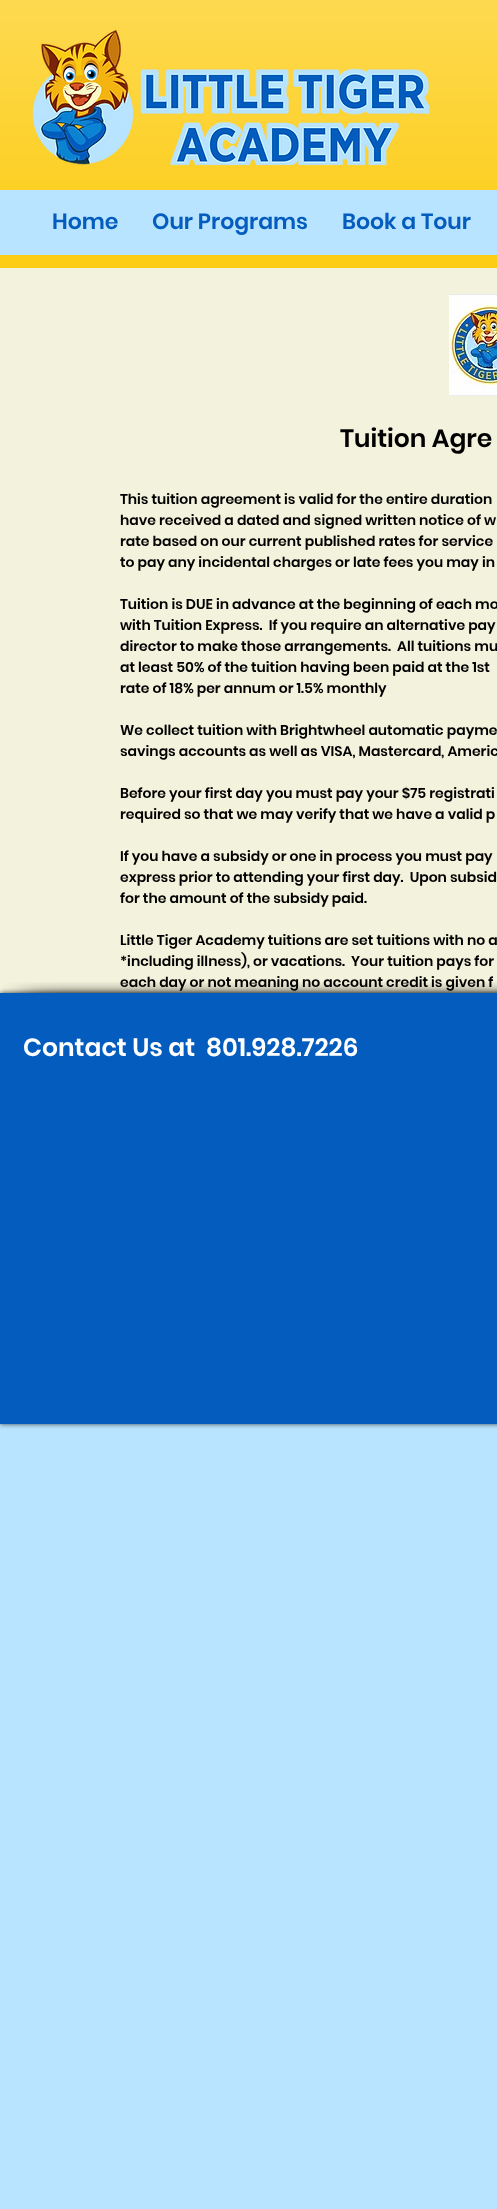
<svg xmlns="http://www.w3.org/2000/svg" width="497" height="2209">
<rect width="100%" height="100%" fill="#b8e4ff"/>
<rect width="497" height="268" fill="#fdcd15"/>
<image x="0" y="0" width="497" height="190" href="media/1.png"/>
<image x="32" y="30" width="398" height="136" href="media/2.png"/>
<rect y="190" width="497" height="65" fill="#b8e4ff"/>
<text x="52" y="229" style="font-family:Poppins;font-size:22px;font-weight:600;fill:#045cbe">Home</text>
<text x="152" y="229" style="font-family:Poppins;font-size:22px;font-weight:600;fill:#045cbe">Our Programs</text>
<text x="342" y="229" style="font-family:Poppins;font-size:22px;font-weight:600;fill:#045cbe">Book a Tour</text>
<rect y="268" width="497" height="725" fill="#f3f2dc"/>
<image x="449" y="294" width="48" height="102" href="media/3.png"/>
<text x="340" y="447" style="font-family:Poppins;font-size:25px;font-weight:600;fill:#000">Tuition Agre</text>
<text x="120" y="504" style="font-family:Poppins;font-size:14px;font-weight:600;fill:#000">This tuition agreement is valid for the entire duration</text>
<text x="120" y="525" style="font-family:Poppins;font-size:14px;font-weight:600;fill:#000">have received a dated and signed written notice of w</text>
<text x="120" y="546" style="font-family:Poppins;font-size:14px;font-weight:600;fill:#000">rate based on our current published rates for service</text>
<text x="120" y="567" style="font-family:Poppins;font-size:14px;font-weight:600;fill:#000">to pay any incidental charges or late fees you may in</text>
<text x="120" y="609" style="font-family:Poppins;font-size:14px;font-weight:600;fill:#000">Tuition is DUE in advance at the beginning of each mo</text>
<text x="120" y="630" style="font-family:Poppins;font-size:14px;font-weight:600;fill:#000" xml:space="preserve">with Tuition Express.  If you require an alternative pay</text>
<text x="120" y="651" style="font-family:Poppins;font-size:14px;font-weight:600;fill:#000" xml:space="preserve">director to make those arrangements.  All tuitions mu</text>
<text x="120" y="672" style="font-family:Poppins;font-size:14px;font-weight:600;fill:#000">at least 50% of the tuition having been paid at the 1st</text>
<text x="120" y="693" style="font-family:Poppins;font-size:14px;font-weight:600;fill:#000">rate of 18% per annum or 1.5% monthly</text>
<text x="120" y="735" style="font-family:Poppins;font-size:14px;font-weight:600;fill:#000">We collect tuition with Brightwheel automatic payme</text>
<text x="120" y="756" style="font-family:Poppins;font-size:14px;font-weight:600;fill:#000">savings accounts as well as VISA, Mastercard, Americ</text>
<text x="120" y="798" style="font-family:Poppins;font-size:14px;font-weight:600;fill:#000">Before your first day you must pay your $75 registrati</text>
<text x="120" y="819" style="font-family:Poppins;font-size:14px;font-weight:600;fill:#000">required so that we may verify that we have a valid p</text>
<text x="120" y="861" style="font-family:Poppins;font-size:14px;font-weight:600;fill:#000">If you have a subsidy or one in process you must pay</text>
<text x="120" y="882" style="font-family:Poppins;font-size:14px;font-weight:600;fill:#000" xml:space="preserve">express prior to attending your first day.  Upon subsid</text>
<text x="120" y="903" style="font-family:Poppins;font-size:14px;font-weight:600;fill:#000">for the amount of the subsidy paid.</text>
<text x="120" y="945" style="font-family:Poppins;font-size:14px;font-weight:600;fill:#000">Little Tiger Academy tuitions are set tuitions with no a</text>
<text x="120" y="966" style="font-family:Poppins;font-size:14px;font-weight:600;fill:#000" xml:space="preserve">*including illness), or vacations.  Your tuition pays for</text>
<text x="120" y="987" style="font-family:Poppins;font-size:14px;font-weight:600;fill:#000">each day or not meaning no account credit is given f</text>
<rect y="993" width="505" height="431" fill="#000000b3" filter="blur(2.5px)"/>
<rect y="993" width="497" height="431" fill="#045cbe"/>
<image x="3" y="982" width="97" height="11" href="media/4.png"/>
<image x="100" y="982" width="397" height="11" href="media/5.png"/>
<text x="23" y="1056" style="font-family:Poppins;font-size:25px;font-weight:600;fill:#fff" xml:space="preserve">Contact Us at  801.928.7226</text>
</svg>
